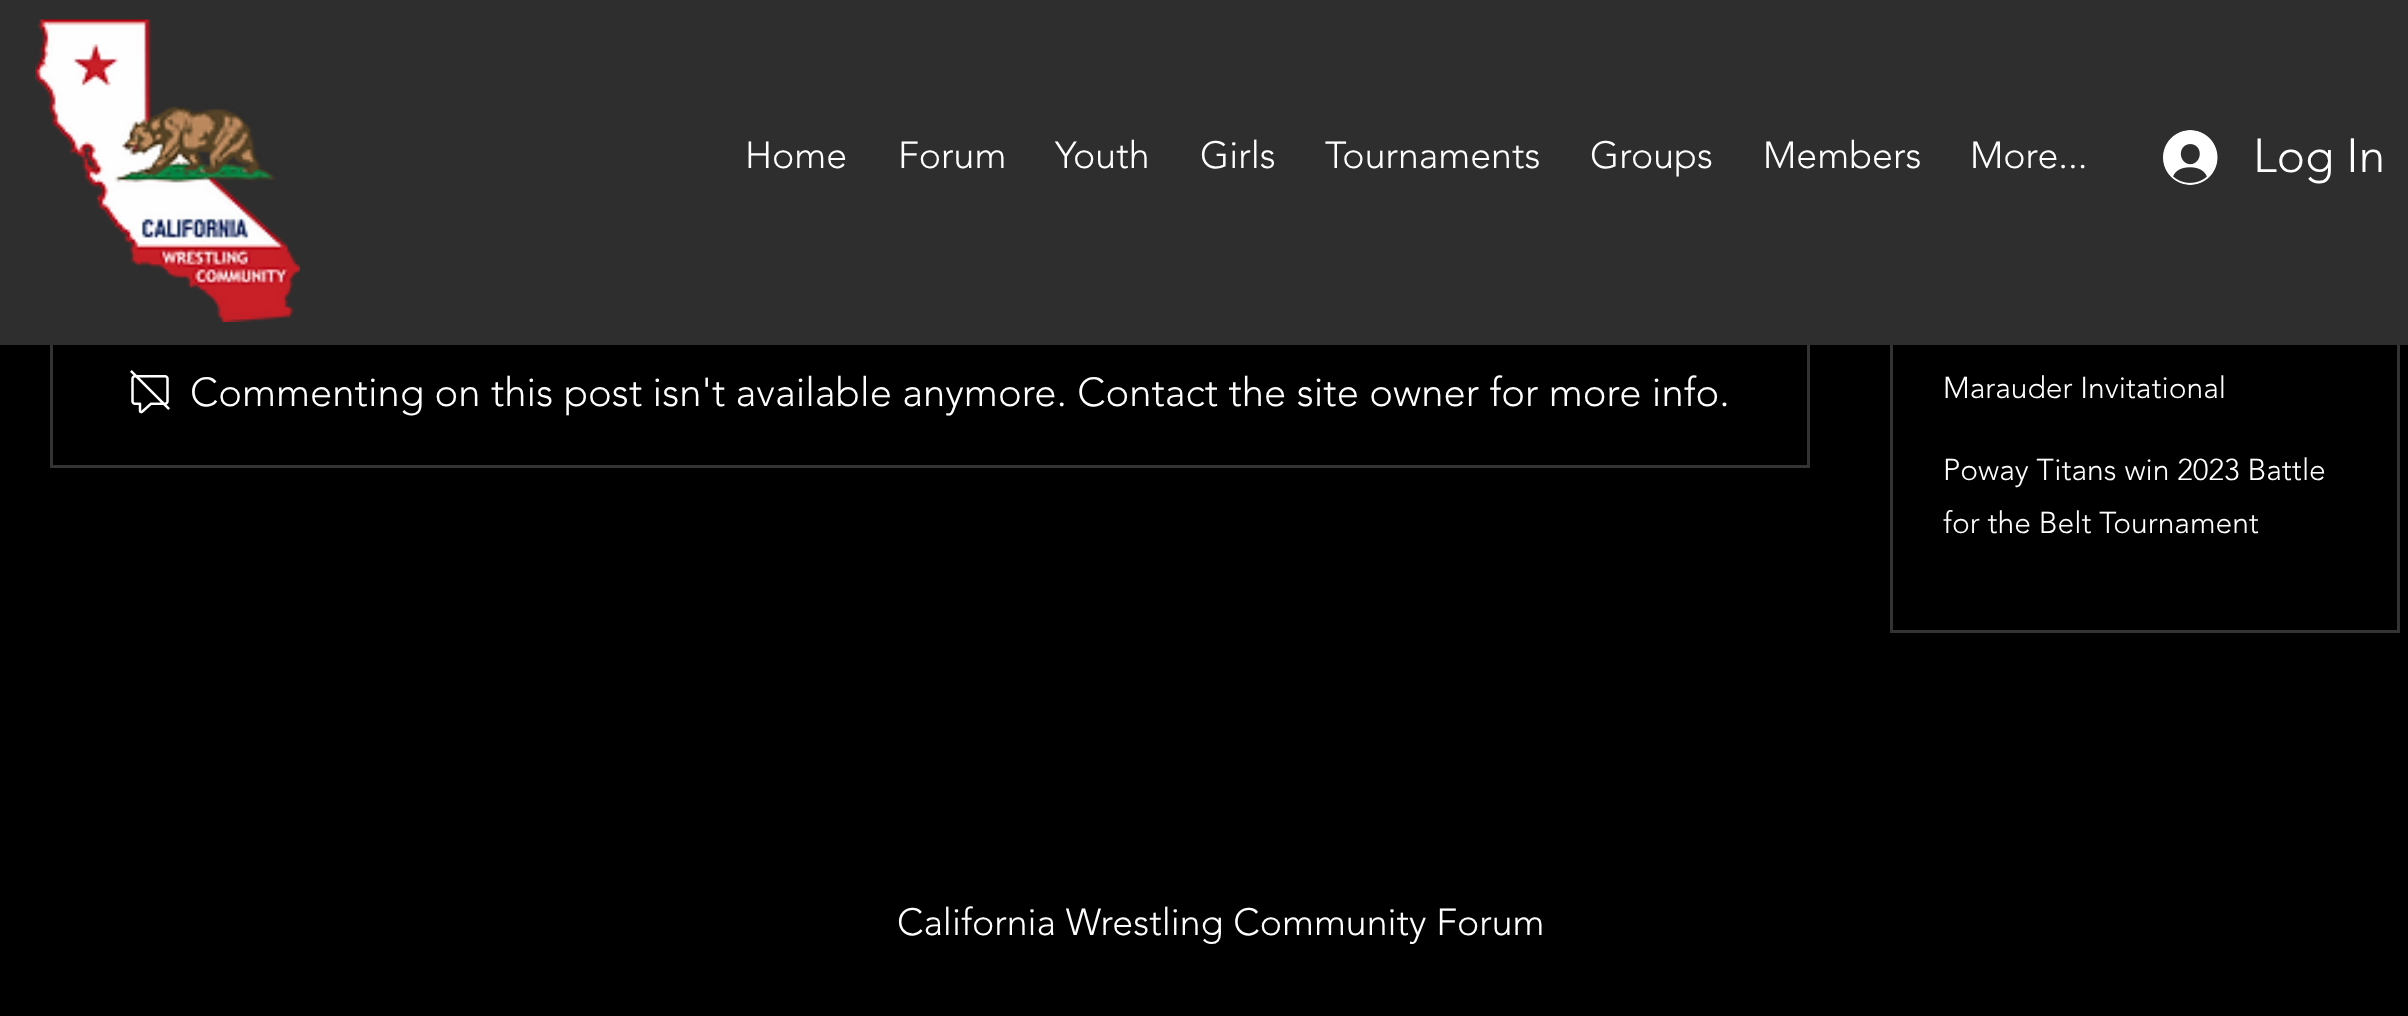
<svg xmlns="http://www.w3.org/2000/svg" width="2408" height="1016">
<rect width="100%" height="100%" fill="#000"/>
<rect x="51.5" y="319.5" width="1757" height="147" fill="none" stroke="#333" stroke-width="3"/>
<rect x="1891.5" y="-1.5" width="507" height="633" fill="none" stroke="#333" stroke-width="3"/>
<rect width="2408" height="345" fill="#2f2e2e"/>
<image x="35" y="19" width="265" height="303" href="media/1.png"/>
<text x="745" y="168" style="font-family:'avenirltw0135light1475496';font-size:37.5px;font-weight:300;fill:#fff">Home</text>
<text x="898" y="168" style="font-family:'avenirltw0135light1475496';font-size:37.5px;font-weight:300;fill:#fff">Forum</text>
<text x="1055" y="168" style="font-family:'avenirltw0135light1475496';font-size:37.5px;font-weight:300;fill:#fff">Youth</text>
<text x="1200" y="168" style="font-family:'avenirltw0135light1475496';font-size:37.5px;font-weight:300;fill:#fff">Girls</text>
<text x="1325" y="168" style="font-family:'avenirltw0135light1475496';font-size:37.5px;font-weight:300;fill:#fff">Tournaments</text>
<text x="1590" y="168" style="font-family:'avenirltw0135light1475496';font-size:37.5px;font-weight:300;fill:#fff">Groups</text>
<text x="1763" y="168" style="font-family:'avenirltw0135light1475496';font-size:37.5px;font-weight:300;fill:#fff">Members</text>
<text x="1970" y="168" style="font-family:'avenirltw0135light1475496';font-size:37.5px;font-weight:300;fill:#fff">More...</text>
<image x="2163" y="130" width="55" height="55" href="media/2.png"/>
<text x="2253" y="172" style="font-family:'avenirltw0135light1475496';font-size:47.5px;font-weight:300;fill:#fff">Log In</text>
<image x="130" y="370" width="40" height="44" href="media/3.png"/>
<text x="190" y="406" style="font-family:'avenirltw0135light1475496';font-size:40px;font-weight:300;fill:#fff">Commenting on this post isn't available anymore. Contact the site owner for more info.</text>
<text x="1943" y="398" style="font-family:'avenirltw0135light1475496';font-size:30px;font-weight:300;fill:#fff">Marauder Invitational</text>
<text x="1943" y="480" style="font-family:'avenirltw0135light1475496';font-size:30px;font-weight:300;fill:#fff">Poway Titans win 2023 Battle</text>
<text x="1943" y="533" style="font-family:'avenirltw0135light1475496';font-size:30px;font-weight:300;fill:#fff">for the Belt Tournament</text>
<text x="897" y="935" style="font-family:'avenirltw0135light1475496';font-size:37.5px;font-weight:300;fill:#fff">California Wrestling Community Forum</text>
</svg>
